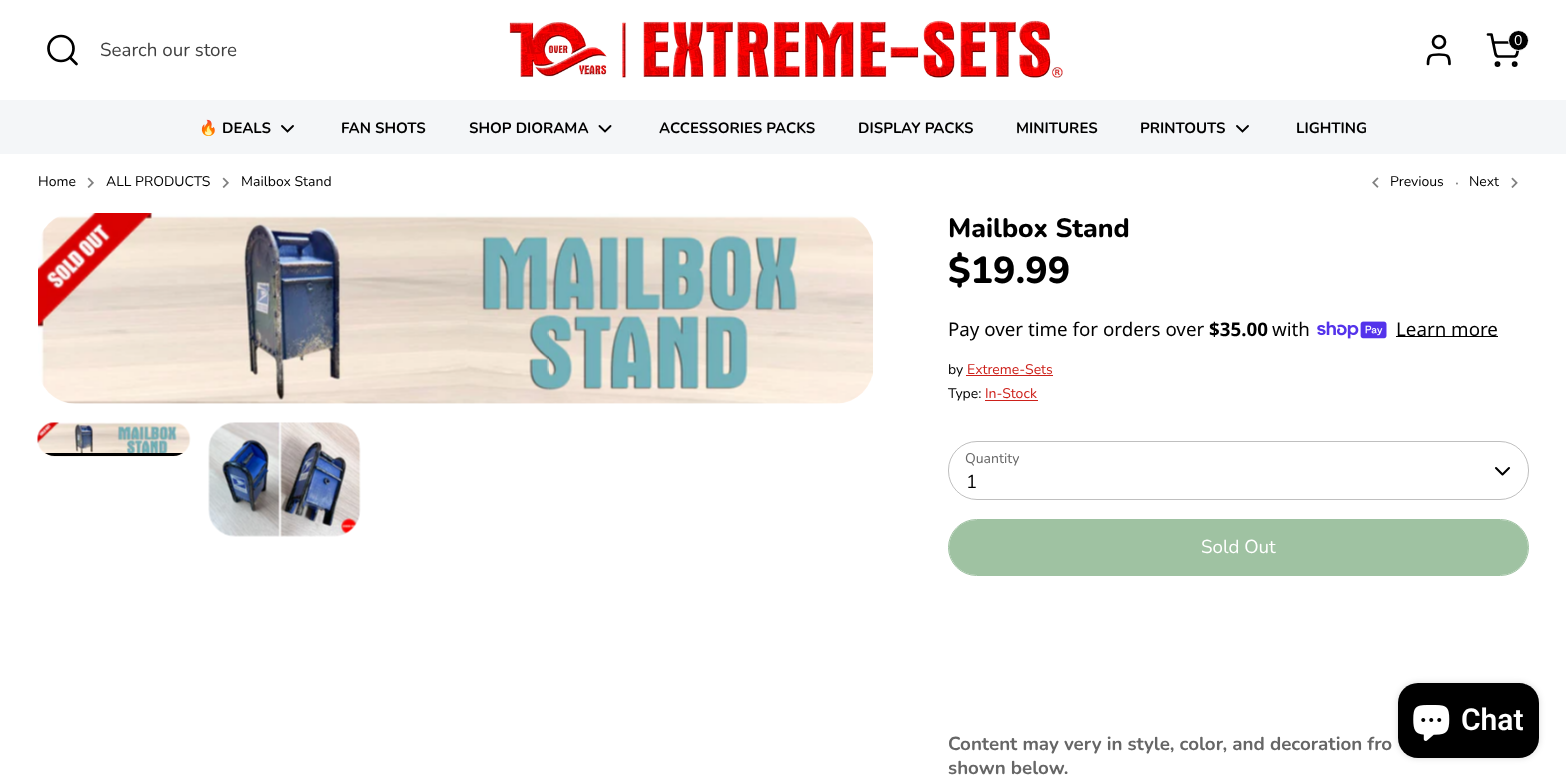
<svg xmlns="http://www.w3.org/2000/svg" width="1566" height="783">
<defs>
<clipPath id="clip1"><rect x="38" y="423" width="152" height="33" rx="16.5"/></clipPath>
</defs>
<rect width="100%" height="100%" fill="#fff"/>
<image x="509" y="20" width="554" height="58" href="media/1.png"/>
<path d="M1449.5 64c0-9-2.5-9.5-10.5-9.5c-8.5 0-11 .5-11 9.5" fill="none" stroke="#000" stroke-width="2.7" stroke-linecap="round" stroke-linejoin="round"/>
<circle cx="1439" cy="42" r="6" fill="none" stroke="#000" stroke-width="2.7"/>
<circle cx="1497.5" cy="64.1" r="1.6" fill="none" stroke="#000" stroke-width="2.7"/>
<circle cx="1514.7" cy="64.1" r="1.6" fill="none" stroke="#000" stroke-width="2.7"/>
<path d="M1488 34.5h3.5l4 19.5c.5 1.5 1.5 2.5 3 2.5h15.5c1.5 0 2.5-1 3-2.5l2.5-11.5h-26.5" fill="none" stroke="#000" stroke-width="2.7" stroke-linecap="round" stroke-linejoin="round"/>
<circle cx="1518.5" cy="40.5" r="10" fill="#000" stroke="#fff"/>
<text x="1514" y="45" style="font-family:Nunito;font-size:14px;fill:#fff">0</text>
<circle cx="61" cy="48.5" r="12.5" fill="none" stroke="#000" stroke-width="2.7"/>
<path d="M76.5 64l-6.5-6.5" fill="none" stroke="#000" stroke-width="2.7" stroke-linecap="round" stroke-linejoin="round"/>
<text x="100" y="56" style="font-family:Nunito;font-size:18.75px;fill:#404040">Search our store</text>
<rect y="100" width="1566" height="54" fill="#f4f6f8"/>
<text x="199" y="133" style="font-family:Noto Color Emoji;font-size:15px;font-weight:bold;fill:#000">🔥</text>
<text x="222" y="133" style="font-family:Nunito;font-size:15px;font-weight:bold;fill:#000">DEALS</text>
<path d="M282 126l5.5 5.5l5.5-5.5" fill="none" stroke="#000" stroke-width="1.9" stroke-linecap="round"/>
<text x="341" y="133" style="font-family:Nunito;font-size:15px;font-weight:bold;fill:#000">FAN SHOTS</text>
<text x="469" y="133" style="font-family:Nunito;font-size:15px;font-weight:bold;fill:#000">SHOP DIORAMA</text>
<path d="M599.5 126l5.5 5.5l5.5-5.5" fill="none" stroke="#000" stroke-width="1.9" stroke-linecap="round"/>
<text x="659" y="133" style="font-family:Nunito;font-size:15px;font-weight:bold;fill:#000">ACCESSORIES PACKS</text>
<text x="858" y="133" style="font-family:Nunito;font-size:15px;font-weight:bold;fill:#000">DISPLAY PACKS</text>
<text x="1016" y="133" style="font-family:Nunito;font-size:15px;font-weight:bold;fill:#000">MINITURES</text>
<text x="1140" y="133" style="font-family:Nunito;font-size:15px;font-weight:bold;fill:#000">PRINTOUTS</text>
<path d="M1237 126l5.5 5.5l5.5-5.5" fill="none" stroke="#000" stroke-width="1.9" stroke-linecap="round"/>
<text x="1296" y="133" style="font-family:Nunito;font-size:15px;font-weight:bold;fill:#000">LIGHTING</text>
<text x="38" y="186" style="font-family:Nunito;font-size:14px;fill:#000">Home</text>
<image x="87" y="177" width="7" height="11" href="media/2.png"/>
<text x="106" y="186" style="font-family:Nunito;font-size:14px;fill:#000">ALL PRODUCTS</text>
<image x="222" y="177" width="7" height="11" href="media/2.png"/>
<text x="241" y="186" style="font-family:Nunito;font-size:14px;fill:#000">Mailbox Stand</text>
<image x="1372" y="177" width="7" height="11" href="media/3.png"/>
<text x="1390" y="186" style="font-family:Nunito;font-size:14px;fill:#000">Previous</text>
<text x="1455" y="188" style="font-family:Nunito;font-size:17px;fill:#808080">·</text>
<text x="1469" y="186" style="font-family:Nunito;font-size:14px;fill:#000">Next</text>
<image x="1511" y="177" width="7" height="11" href="media/4.png"/>
<image x="38" y="213" width="835" height="191" href="media/5.png"/>
<image x="37" y="422" width="154" height="35" href="media/6.png"/>
<g clip-path="url(#clip1)">
<rect x="38" y="453" width="152" height="3" fill="#000"/>
</g>
<image x="208" y="422" width="153" height="115" href="media/7.png"/>
<text x="948" y="237" style="font-family:Nunito;font-size:26.5px;font-weight:800;fill:#000">Mailbox Stand</text>
<text x="948" y="283" style="font-family:Nunito;font-size:37.5px;font-weight:800;fill:#000">$19.99</text>
<text x="948" y="336" style="font-family:Noto Sans;font-size:18.75px;fill:#000">Pay over time for orders over</text>
<text x="1209" y="336" style="font-family:Noto Sans;font-size:18.75px;font-weight:bold;fill:#000">$35.00</text>
<text x="1272" y="336" style="font-family:Noto Sans;font-size:18.75px;fill:#000">with</text>
<image x="1317" y="321" width="70" height="18" href="media/8.png"/>
<rect x="1396" y="336" width="102" height="1" fill="#000"/>
<text x="1396" y="336" style="font-family:Noto Sans;font-size:18.75px;fill:#000">Learn more</text>
<text x="948" y="374" style="font-family:Nunito;font-size:14px;fill:#000">by</text>
<text x="967" y="374" style="font-family:Nunito;font-size:14px;fill:#cd201a">Extreme-Sets</text>
<rect x="966" y="375" width="87" height="1" fill="#cd201a"/>
<text x="948" y="398" style="font-family:Nunito;font-size:14px;fill:#000">Type:</text>
<text x="985" y="398" style="font-family:Nunito;font-size:14px;fill:#cd201a">In-Stock</text>
<rect x="985" y="400" width="53" height="1" fill="#cd201a"/>
<text x="965" y="463" style="font-family:Nunito;font-size:14px;fill:#666">Quantity</text>
<rect x="948.5" y="441.5" width="580" height="58" rx="28.5" fill="none" stroke="#bfbfbf"/>
<path d="M1496 468l6.5 6.5l6.5-6.5" fill="none" stroke="#000" stroke-width="2.1" stroke-linecap="round" stroke-linejoin="round"/>
<text x="966" y="488" style="font-family:Nunito;font-size:18.75px;fill:#000">1</text>
<rect x="948.5" y="519.5" width="580" height="56" rx="28" fill="none" stroke="#9fc2a2"/>
<rect x="949" y="520" width="579" height="55" rx="27.5" fill="#9fc2a2"/>
<text x="1201" y="553" style="font-family:Nunito;font-size:18.75px;fill:#fff">Sold Out</text>
<text x="948" y="750" style="font-family:Nunito;font-size:18.75px;font-weight:bold;fill:#666">Content may very in style, color, and decoration fro</text>
<text x="948" y="774" style="font-family:Nunito;font-size:18.75px;font-weight:bold;fill:#666">shown below.</text>
<rect x="1398" y="683" width="141" height="75" rx="20" fill="#00000026" filter="blur(3px)"/>
<rect x="1398" y="683" width="141" height="75" rx="20" fill="#000"/>
<image x="1413" y="705" width="37" height="36" href="media/9.png"/>
<text x="1461" y="730" style="font-family:Roboto;font-size:30px;font-weight:600;fill:#fff">Chat</text>
</svg>
